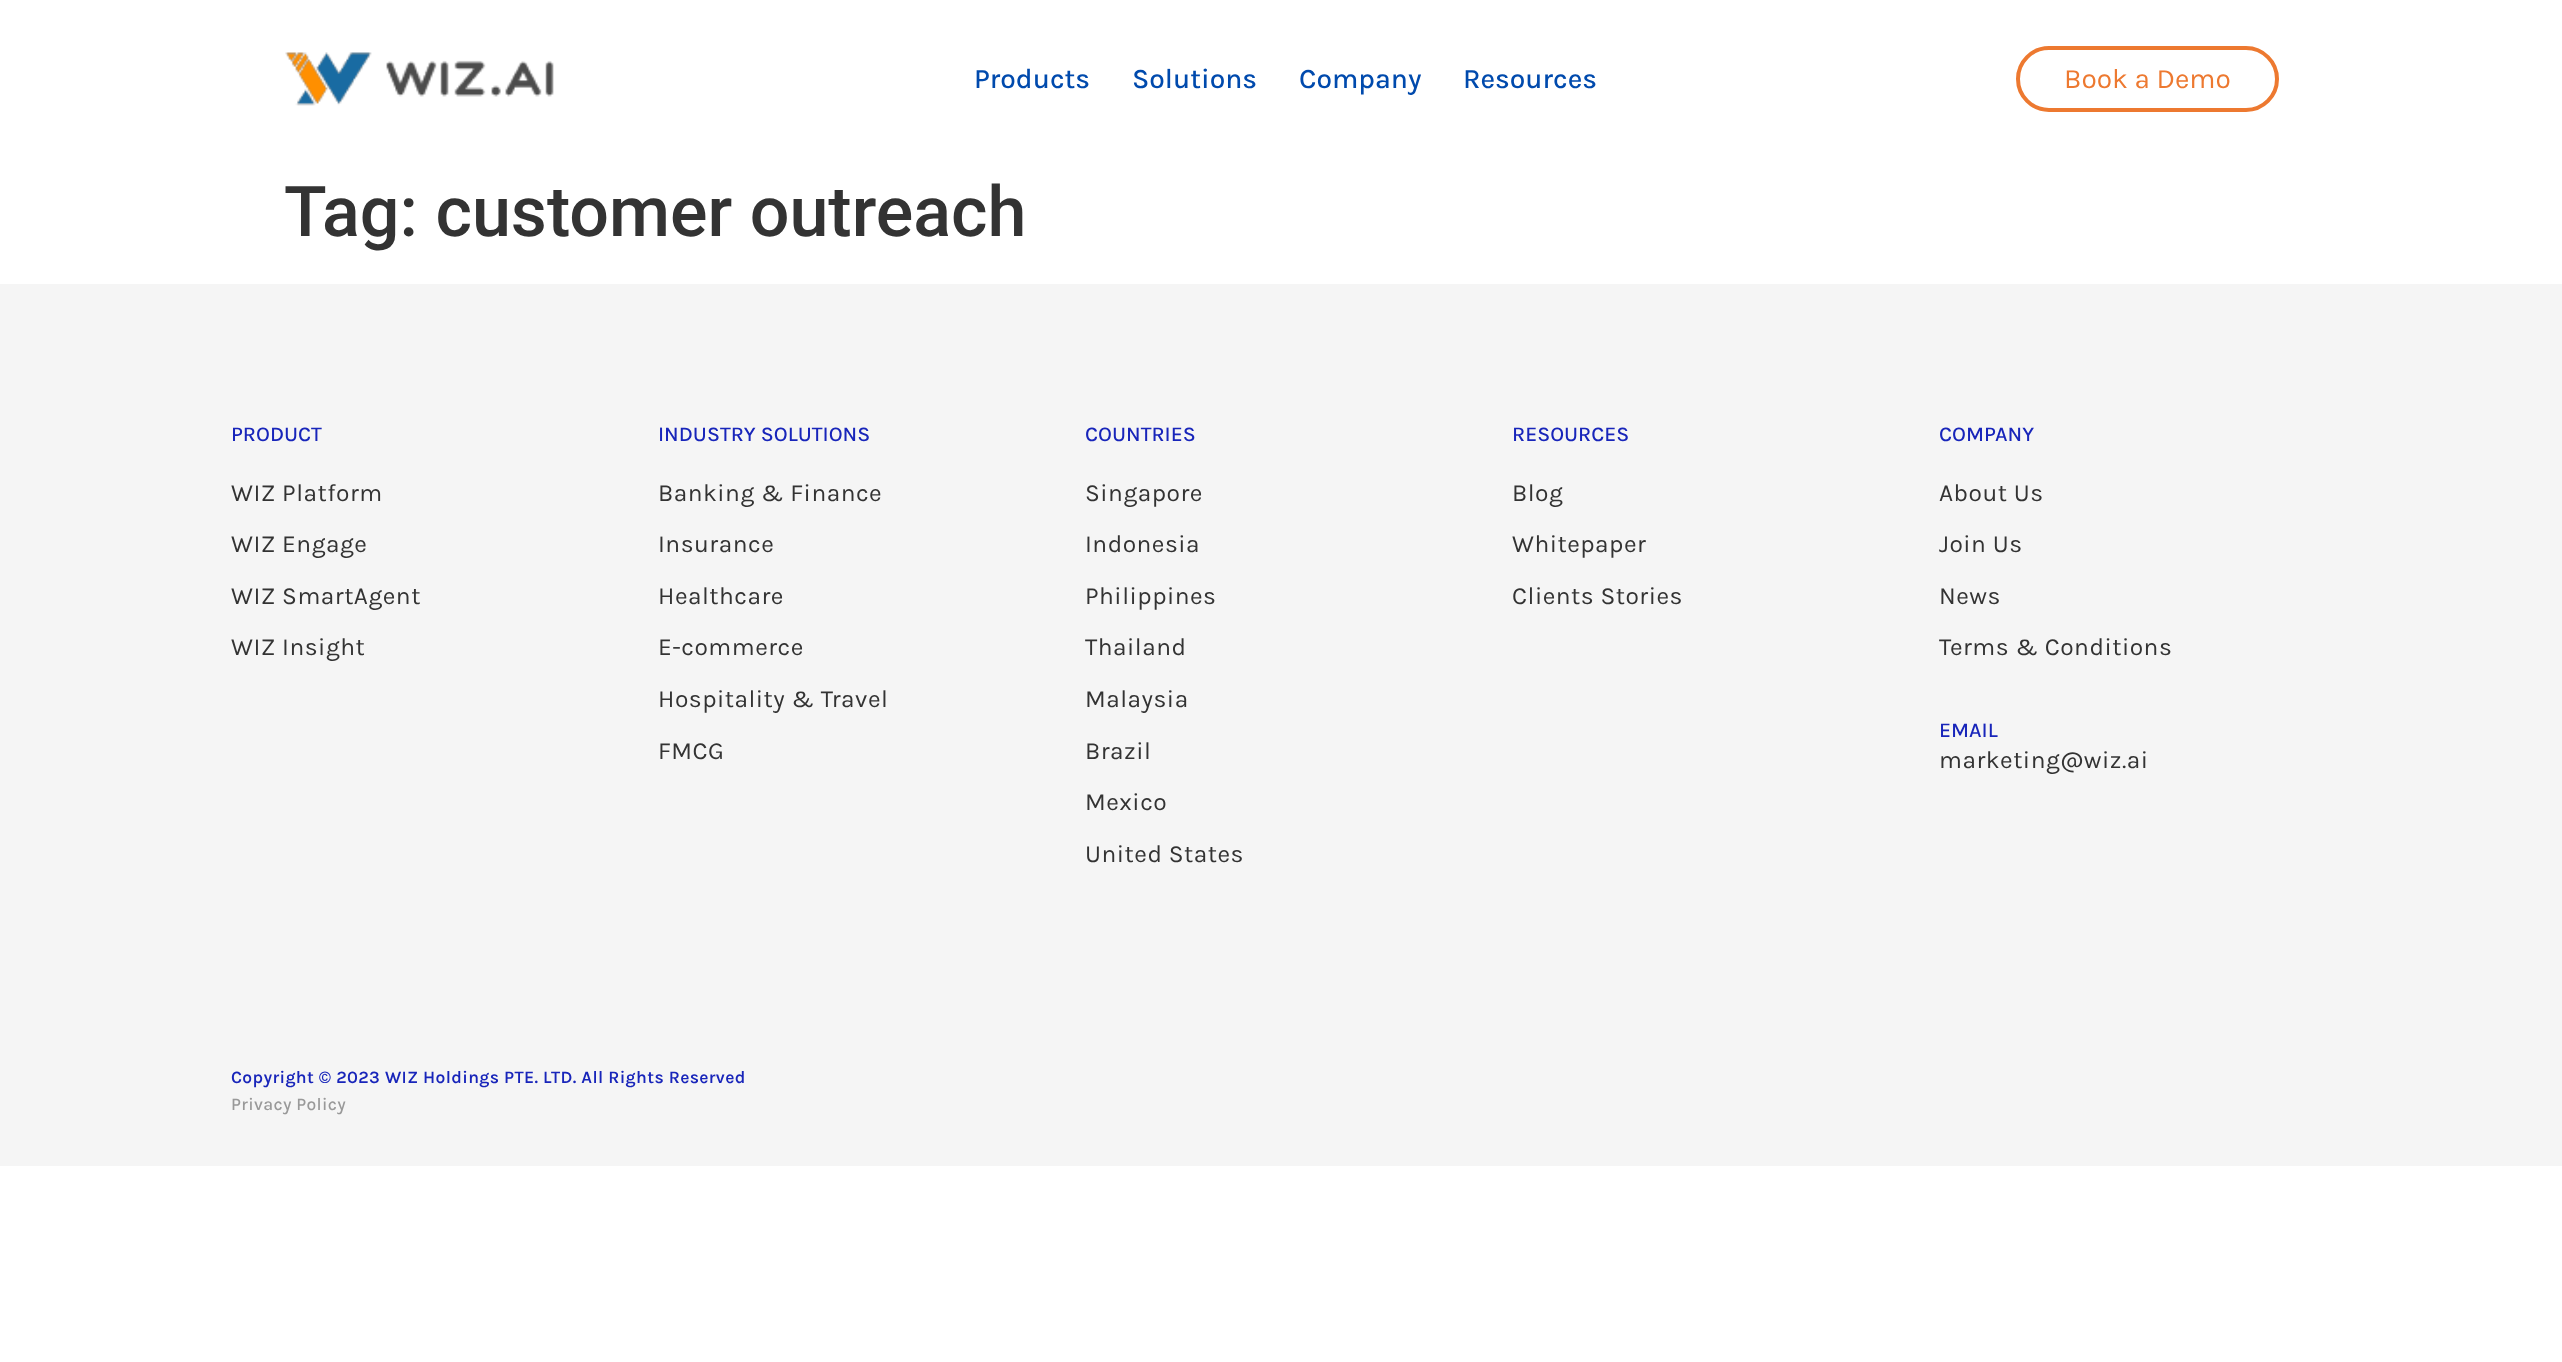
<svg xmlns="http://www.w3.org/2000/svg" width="2562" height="1362">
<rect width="100%" height="100%" fill="#fff"/>
<image x="285" y="52" width="269" height="54" href="media/1.png"/>
<text x="974" y="88" style="font-family:Karla;font-size:28px;font-weight:500;fill:#004aad">Products</text>
<text x="1132" y="88" style="font-family:Karla;font-size:28px;font-weight:500;fill:#004aad">Solutions</text>
<text x="1299" y="88" style="font-family:Karla;font-size:28px;font-weight:500;fill:#004aad">Company</text>
<text x="1463" y="88" style="font-family:Karla;font-size:28px;font-weight:500;fill:#004aad">Resources</text>
<rect x="2018" y="48" width="259" height="62" rx="31" fill="none" stroke="#ed7930" stroke-width="4"/>
<text x="2064" y="88" style="font-family:Karla;font-size:28px;fill:#ed7930">Book a Demo</text>
<text x="284" y="236" style="font-family:Roboto;font-size:70px;font-weight:500;fill:#333">Tag: customer outreach</text>
<rect y="284" width="2562" height="882" fill="#f5f5f5"/>
<text x="231" y="441" style="font-family:Karla;font-size:21px;font-weight:500;fill:#1825ba">PRODUCT</text>
<text x="231" y="501" style="font-family:Karla;font-size:24.5px;letter-spacing:0.5px;fill:#333">WIZ Platform</text>
<text x="231" y="552" style="font-family:Karla;font-size:24.5px;letter-spacing:0.5px;fill:#333">WIZ Engage</text>
<text x="231" y="604" style="font-family:Karla;font-size:24.5px;letter-spacing:0.5px;fill:#333">WIZ SmartAgent</text>
<text x="231" y="655" style="font-family:Karla;font-size:24.5px;letter-spacing:0.5px;fill:#333">WIZ Insight</text>
<text x="658" y="441" style="font-family:Karla;font-size:21px;font-weight:500;fill:#1825ba">INDUSTRY SOLUTIONS</text>
<text x="658" y="501" style="font-family:Karla;font-size:24.5px;letter-spacing:0.5px;fill:#333">Banking &amp; Finance</text>
<text x="658" y="552" style="font-family:Karla;font-size:24.5px;letter-spacing:0.5px;fill:#333">Insurance</text>
<text x="658" y="604" style="font-family:Karla;font-size:24.5px;letter-spacing:0.5px;fill:#333">Healthcare</text>
<text x="658" y="655" style="font-family:Karla;font-size:24.5px;letter-spacing:0.5px;fill:#333">E-commerce</text>
<text x="658" y="707" style="font-family:Karla;font-size:24.5px;letter-spacing:0.5px;fill:#333">Hospitality &amp; Travel</text>
<text x="658" y="759" style="font-family:Karla;font-size:24.5px;letter-spacing:0.5px;fill:#333">FMCG</text>
<text x="1085" y="441" style="font-family:Karla;font-size:21px;font-weight:500;fill:#1825ba">COUNTRIES</text>
<text x="1085" y="501" style="font-family:Karla;font-size:24.5px;letter-spacing:0.5px;fill:#333">Singapore</text>
<text x="1085" y="552" style="font-family:Karla;font-size:24.5px;letter-spacing:0.5px;fill:#333">Indonesia</text>
<text x="1085" y="604" style="font-family:Karla;font-size:24.5px;letter-spacing:0.5px;fill:#333">Philippines</text>
<text x="1085" y="655" style="font-family:Karla;font-size:24.5px;letter-spacing:0.5px;fill:#333">Thailand</text>
<text x="1085" y="707" style="font-family:Karla;font-size:24.5px;letter-spacing:0.5px;fill:#333">Malaysia</text>
<text x="1085" y="759" style="font-family:Karla;font-size:24.5px;letter-spacing:0.5px;fill:#333">Brazil</text>
<text x="1085" y="810" style="font-family:Karla;font-size:24.5px;letter-spacing:0.5px;fill:#333">Mexico</text>
<text x="1085" y="862" style="font-family:Karla;font-size:24.5px;letter-spacing:0.5px;fill:#333">United States</text>
<text x="1512" y="441" style="font-family:Karla;font-size:21px;font-weight:500;fill:#1825ba">RESOURCES</text>
<text x="1512" y="501" style="font-family:Karla;font-size:24.5px;letter-spacing:0.5px;fill:#333">Blog</text>
<text x="1512" y="552" style="font-family:Karla;font-size:24.5px;letter-spacing:0.5px;fill:#333">Whitepaper</text>
<text x="1512" y="604" style="font-family:Karla;font-size:24.5px;letter-spacing:0.5px;fill:#333">Clients Stories</text>
<text x="1939" y="441" style="font-family:Karla;font-size:21px;font-weight:500;fill:#1825ba">COMPANY</text>
<text x="1939" y="501" style="font-family:Karla;font-size:24.5px;letter-spacing:0.5px;fill:#333">About Us</text>
<text x="1939" y="552" style="font-family:Karla;font-size:24.5px;letter-spacing:0.5px;fill:#333">Join Us</text>
<text x="1939" y="604" style="font-family:Karla;font-size:24.5px;letter-spacing:0.5px;fill:#333">News</text>
<text x="1939" y="655" style="font-family:Karla;font-size:24.5px;letter-spacing:0.5px;fill:#333">Terms &amp; Conditions</text>
<text x="1939" y="737" style="font-family:Karla;font-size:21px;font-weight:500;fill:#1825ba">EMAIL</text>
<text x="1939" y="768" style="font-family:Karla;font-size:24.5px;letter-spacing:0.5px;fill:#333">marketing@wiz.ai</text>
<text x="231" y="1083" style="font-family:Karla;font-size:17.5px;font-weight:600;letter-spacing:0.35px;fill:#1825ba">Copyright © 2023 WIZ Holdings PTE. LTD. All Rights Reserved</text>
<text x="231" y="1110" style="font-family:Karla;font-size:17.5px;font-weight:500;letter-spacing:0.35px;fill:#999">Privacy Policy</text>
</svg>
